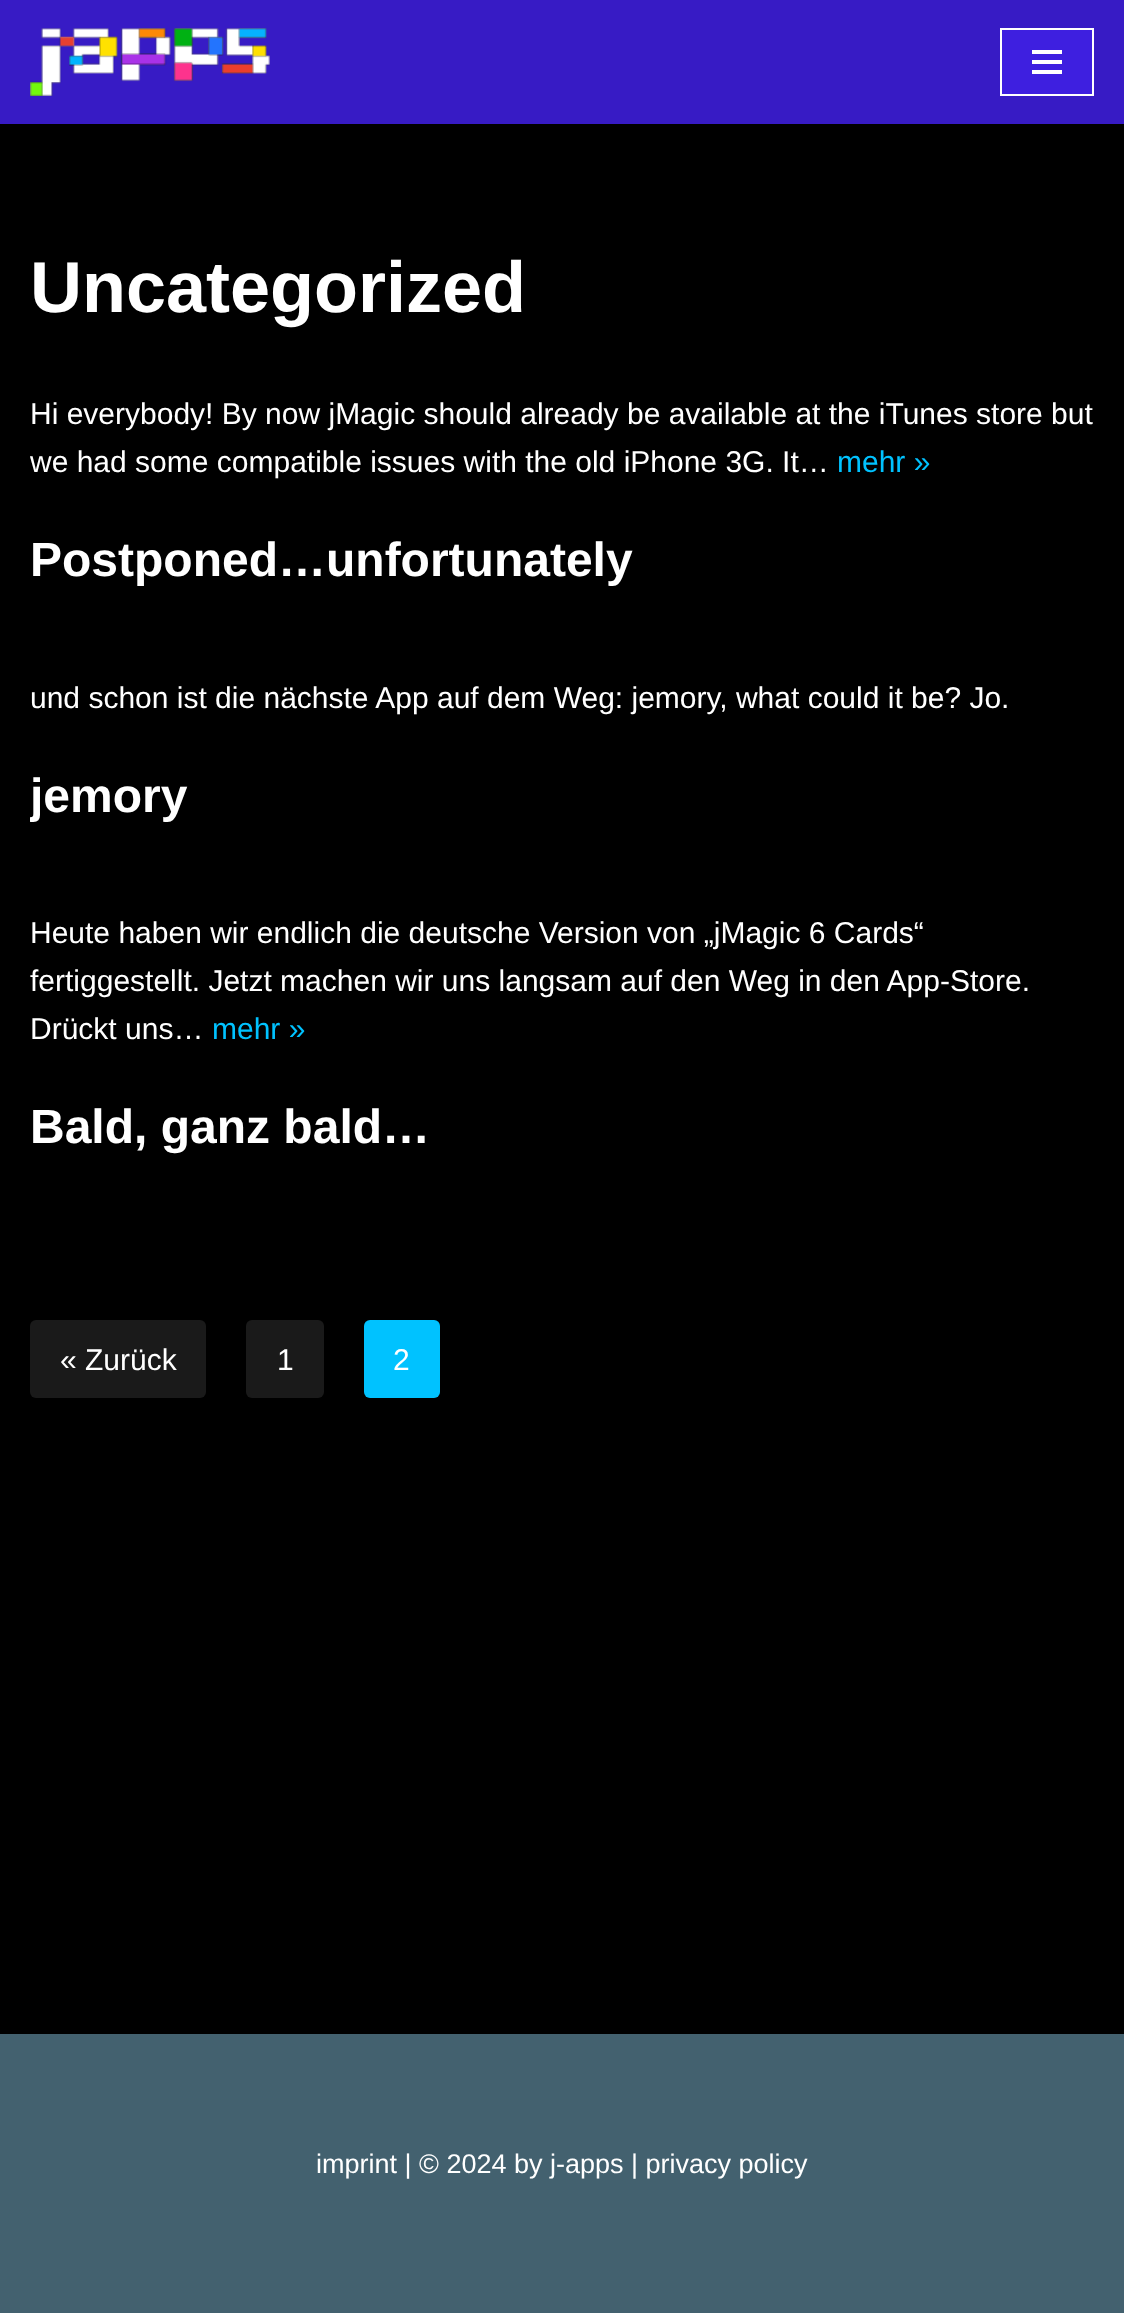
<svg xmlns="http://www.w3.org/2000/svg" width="1124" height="2313">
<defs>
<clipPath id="clip1"><rect x="30" y="674" width="1064" height="174"/></clipPath>
</defs>
<rect width="100%" height="100%" fill="#000"/>
<rect width="1124" height="124" fill="#371bc5"/>
<image x="30" y="28" width="240" height="68" href="media/1.png"/>
<rect x="1001" y="29" width="92" height="66" fill="#3e1fe0" stroke="#fff" stroke-width="2"/>
<rect x="1032" y="50" width="30" height="4" fill="#fff"/>
<rect x="1032" y="60" width="30" height="4" fill="#fff"/>
<rect x="1032" y="70" width="30" height="4" fill="#fff"/>
<text x="30" y="312" style="font-family:Liberation Sans;font-size:72px;font-weight:bold;fill:#fff">Uncategorized</text>
<text x="30" y="424" style="font-family:Liberation Sans;font-size:30px;fill:#fff">Hi everybody! By now jMagic should already be available at the iTunes store but</text>
<text x="30" y="472" style="font-family:Liberation Sans;font-size:30px;fill:#fff">we had some compatible issues with the old iPhone 3G. It…</text>
<text x="837" y="472" style="font-family:Liberation Sans;font-size:30px;fill:#00c2ff">mehr »</text>
<text x="30" y="576" style="font-family:Liberation Sans;font-size:48px;font-weight:bold;fill:#fff">Postponed…unfortunately</text>
<text x="30" y="708" style="font-family:Liberation Sans;font-size:30px;fill:#fff">und schon ist die nächste App auf dem Weg: jemory, what could it be? Jo.</text>
<g clip-path="url(#clip1)">
<text x="30" y="812" style="font-family:Liberation Sans;font-size:48px;font-weight:bold;fill:#fff">jemory</text>
</g>
<text x="30" y="943" style="font-family:Liberation Sans;font-size:30px;fill:#fff">Heute haben wir endlich die deutsche Version von „jMagic 6 Cards“</text>
<text x="30" y="991" style="font-family:Liberation Sans;font-size:30px;fill:#fff">fertiggestellt. Jetzt machen wir uns langsam auf den Weg in den App-Store.</text>
<text x="30" y="1039" style="font-family:Liberation Sans;font-size:30px;fill:#fff">Drückt uns…</text>
<text x="212" y="1039" style="font-family:Liberation Sans;font-size:30px;fill:#00c2ff">mehr »</text>
<text x="30" y="1143" style="font-family:Liberation Sans;font-size:48px;font-weight:bold;fill:#fff">Bald, ganz bald…</text>
<rect x="30" y="1320" width="176" height="78" rx="6" fill="#1a1a1a"/>
<text x="60" y="1370" style="font-family:Liberation Sans;font-size:30px;fill:#fff">« Zurück</text>
<rect x="246" y="1320" width="78" height="78" rx="6" fill="#1a1a1a"/>
<text x="277" y="1370" style="font-family:Liberation Sans;font-size:30px;fill:#fff">1</text>
<rect x="364" y="1320" width="76" height="78" rx="6" fill="#00c2ff"/>
<text x="393" y="1370" style="font-family:Liberation Sans;font-size:30px;fill:#fff">2</text>
<rect y="2034" width="1124" height="279" fill="#43616f"/>
<text x="316" y="2173" style="font-family:Liberation Sans;font-size:27px;fill:#fff">imprint | © 2024 by j-apps | privacy policy</text>
</svg>
